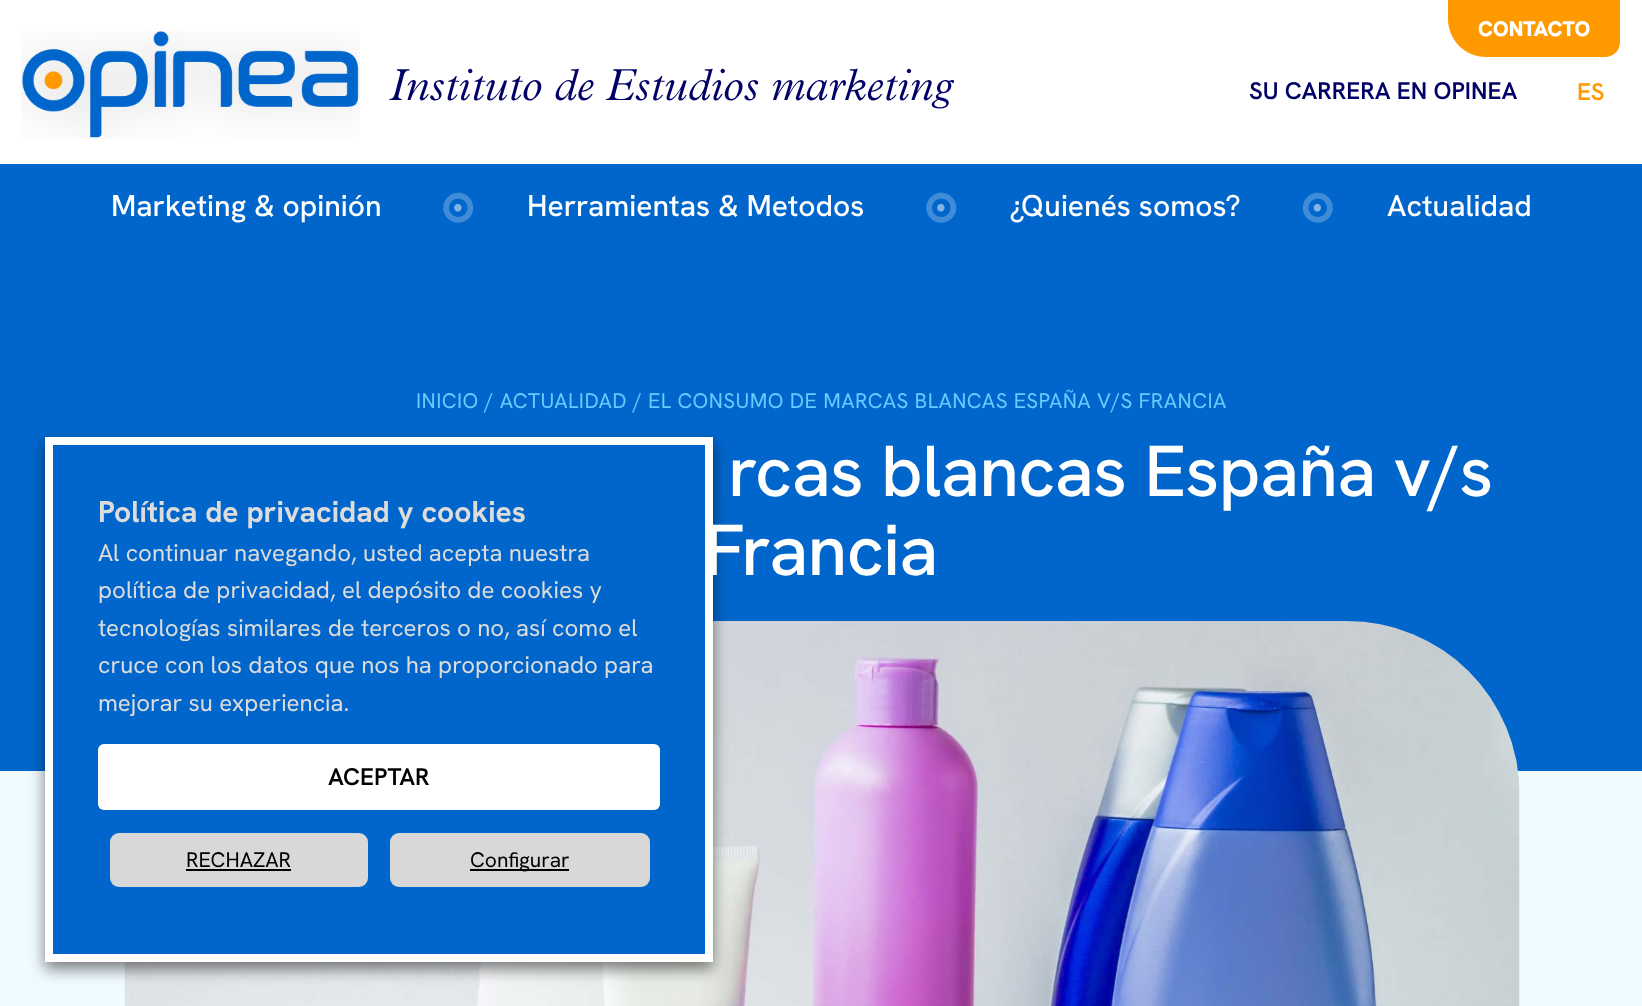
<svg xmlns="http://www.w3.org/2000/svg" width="1642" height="1006">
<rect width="100%" height="100%" fill="#fff"/>
<image x="21" y="31" width="339" height="108" href="media/1.png"/>
<text x="389" y="100" style="font-family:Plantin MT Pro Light;font-size:45px;font-weight:300;font-style:italic;fill:#006">Instituto de Estudios marketing</text>
<path d="M1448 0h172v42c0 8.5-6.5 15-15 15h-119c-21 0-38-17-38-38z" fill="#f90"/>
<text x="1478" y="36" style="font-family:Hanken Grotesk;font-size:21px;font-weight:900;fill:#fff">CONTACTO</text>
<text x="1249" y="99" style="font-family:Hanken Grotesk;font-size:24px;font-weight:600;fill:#006">SU CARRERA EN OPINEA</text>
<text x="1577" y="100" style="font-family:Hanken Grotesk;font-size:24px;font-weight:600;fill:#f90">ES</text>
<rect y="164" width="1642" height="607" fill="#06c"/>
<text x="111" y="216" style="font-family:Hanken Grotesk;font-size:30px;font-weight:500;fill:#fff">Marketing &amp; opinión</text>
<image x="443" y="192" width="31" height="31" href="media/2.png"/>
<text x="527" y="216" style="font-family:Hanken Grotesk;font-size:30px;font-weight:500;fill:#fff">Herramientas &amp; Metodos</text>
<image x="926" y="192" width="31" height="31" href="media/2.png"/>
<text x="1010" y="216" style="font-family:Hanken Grotesk;font-size:30px;font-weight:500;fill:#fff">¿Quienés somos?</text>
<image x="1302" y="192" width="31" height="31" href="media/3.png"/>
<text x="1387" y="216" style="font-family:Hanken Grotesk;font-size:30px;font-weight:500;fill:#fff">Actualidad</text>
<rect y="771" width="1642" height="235" fill="#f0fbff"/>
<image x="124" y="621" width="1396" height="385" href="media/4.png"/>
<rect x="45" y="444" width="668" height="525" fill="#00000080" filter="blur(7.5px)"/>
<text x="704" y="575" style="font-family:Hanken Grotesk;font-size:72px;font-weight:500;letter-spacing:-0.75px;fill:#fff">Francia</text>
<rect x="49" y="441" width="660" height="517" fill="#06c" stroke="#fff" stroke-width="8"/>
<text x="98" y="522" style="font-family:Hanken Grotesk;font-size:30px;font-weight:bold;fill:#dcdcdc">Política de privacidad y cookies</text>
<text x="98" y="561" style="font-family:Hanken Grotesk;font-size:24px;fill:#dcdcdc">Al continuar navegando, usted acepta nuestra</text>
<text x="98" y="598" style="font-family:Hanken Grotesk;font-size:24px;fill:#dcdcdc">política de privacidad, el depósito de cookies y</text>
<text x="98" y="636" style="font-family:Hanken Grotesk;font-size:24px;fill:#dcdcdc">tecnologías similares de terceros o no, así como el</text>
<text x="98" y="673" style="font-family:Hanken Grotesk;font-size:24px;fill:#dcdcdc">cruce con los datos que nos ha proporcionado para</text>
<text x="98" y="711" style="font-family:Hanken Grotesk;font-size:24px;fill:#dcdcdc">mejorar su experiencia.</text>
<rect x="98" y="744" width="562" height="66" rx="6" fill="#fff"/>
<text x="328" y="785" style="font-family:Hanken Grotesk;font-size:24px;font-weight:600;fill:#000">ACEPTAR</text>
<rect x="110" y="833" width="258" height="54" rx="9" fill="#d8d8d8"/>
<text x="186" y="867" style="font-family:Hanken Grotesk;font-size:21px;fill:#000">RECHAZAR</text>
<rect x="186" y="869" width="105" height="2" fill="#000"/>
<rect x="390" y="833" width="260" height="54" rx="9" fill="#d8d8d8"/>
<rect x="470" y="869" width="99" height="2" fill="#000"/>
<text x="470" y="867" style="font-family:Hanken Grotesk;font-size:21px;fill:#000">Configurar</text>
<text x="416" y="408" style="font-family:Hanken Grotesk;font-size:21px;letter-spacing:0.42px;fill:#6cf">INICIO / ACTUALIDAD / EL CONSUMO DE MARCAS BLANCAS ESPAÑA V/S FRANCIA</text>
<text x="728" y="496" style="font-family:Hanken Grotesk;font-size:72px;font-weight:500;letter-spacing:-0.75px;fill:#fff">rcas blancas España v/s</text>
</svg>
